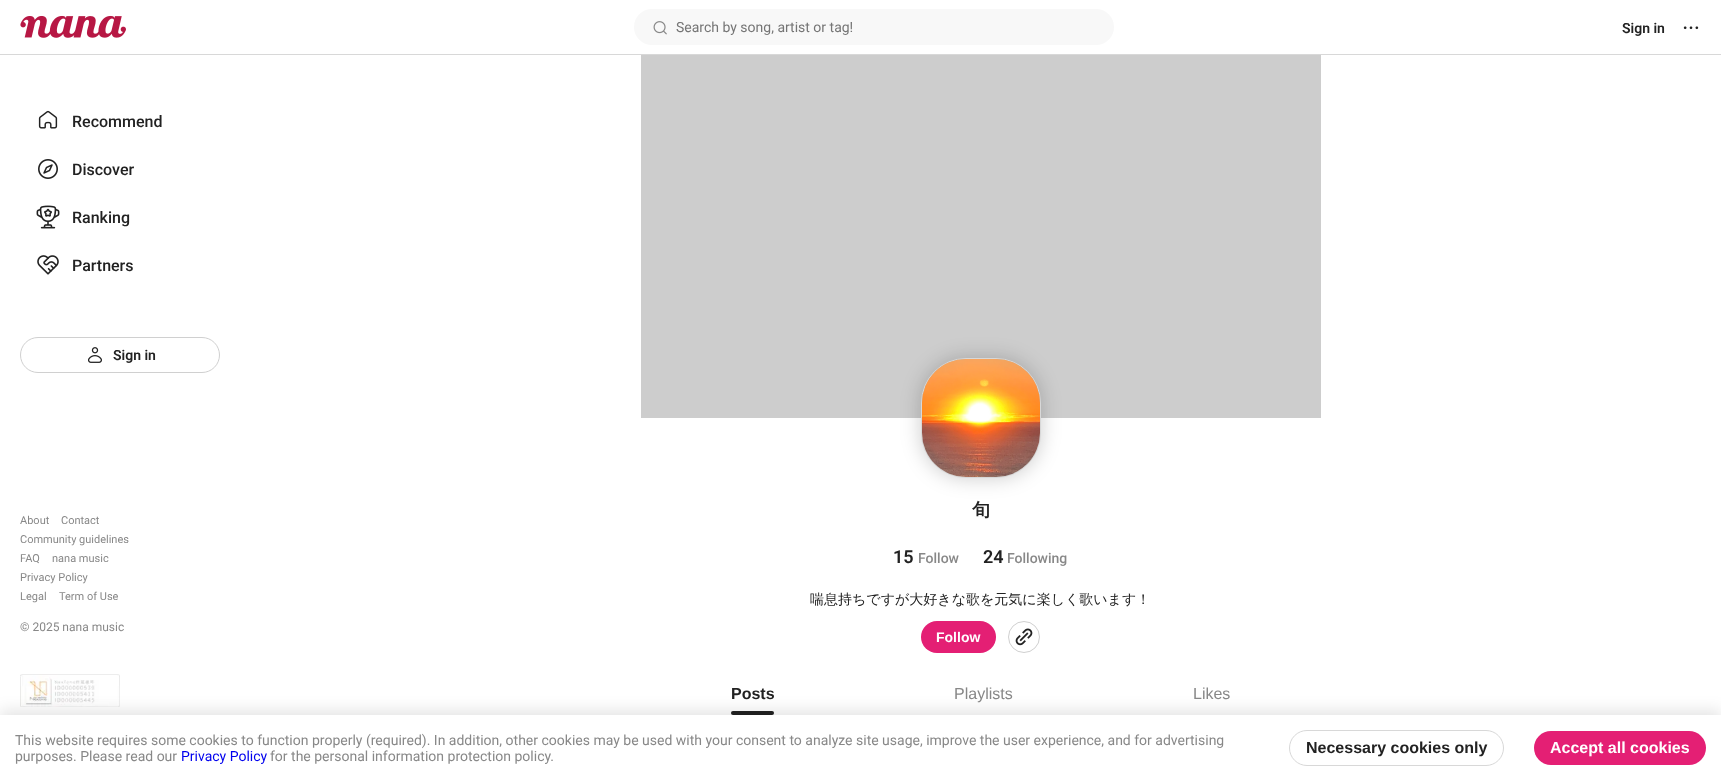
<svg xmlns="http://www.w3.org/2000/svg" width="1721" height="781">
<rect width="100%" height="100%" fill="#fff"/>
<rect y="54" width="1721" height="1" fill="#d8d8d8"/>
<image x="20" y="15" width="106" height="23" href="media/1.png"/>
<rect x="634" y="9" width="480" height="36" rx="18" fill="#f8f8f8"/>
<image x="653" y="21" width="14" height="14" href="media/2.png"/>
<text x="676" y="32" style="font-family:Roboto;font-size:14px;fill:#757575">Search by song, artist or tag!</text>
<text x="1622" y="33" style="font-family:Roboto;font-size:14px;font-weight:600;fill:#222">Sign in</text>
<image x="1683" y="26" width="16" height="4" href="media/3.png"/>
<image x="38" y="110" width="20" height="19" href="media/4.png"/>
<text x="72" y="127" style="font-family:Roboto;font-size:16px;font-weight:500;fill:#222">Recommend</text>
<image x="38" y="159" width="20" height="20" href="media/5.png"/>
<text x="72" y="175" style="font-family:Roboto;font-size:16px;font-weight:500;fill:#222">Discover</text>
<image x="36" y="205" width="24" height="24" href="media/6.png"/>
<text x="72" y="223" style="font-family:Roboto;font-size:16px;font-weight:500;fill:#222">Ranking</text>
<image x="37" y="255" width="22" height="20" href="media/7.png"/>
<text x="72" y="271" style="font-family:Roboto;font-size:16px;font-weight:500;fill:#222">Partners</text>
<rect x="20.5" y="337.5" width="199" height="35" rx="17.5" fill="none" stroke="#d0d0d0"/>
<image x="88" y="347" width="14" height="16" href="media/8.png"/>
<text x="113" y="360" style="font-family:Roboto;font-size:14px;font-weight:600;fill:#222">Sign in</text>
<text x="20" y="524" style="font-family:Roboto;font-size:11px;fill:#888">About</text>
<text x="61" y="524" style="font-family:Roboto;font-size:11px;fill:#888">Contact</text>
<text x="20" y="543" style="font-family:Roboto;font-size:11px;fill:#888">Community guidelines</text>
<text x="20" y="562" style="font-family:Roboto;font-size:11px;fill:#888">FAQ</text>
<text x="52" y="562" style="font-family:Roboto;font-size:11px;fill:#888">nana music</text>
<text x="20" y="581" style="font-family:Roboto;font-size:11px;fill:#888">Privacy Policy</text>
<text x="20" y="600" style="font-family:Roboto;font-size:11px;fill:#888">Legal</text>
<text x="59" y="600" style="font-family:Roboto;font-size:11px;fill:#888">Term of Use</text>
<text x="20" y="631" style="font-family:Roboto;font-size:12px;fill:#888">© 2025 nana music</text>
<image x="20" y="674" width="100" height="33" href="media/9.png"/>
<rect x="641" y="55" width="680" height="363" fill="#cdcdcd"/>
<rect x="921" y="358" width="120" height="120" rx="45" fill="#00000033" filter="blur(10px)"/>
<rect x="921.5" y="358.5" width="119" height="119" rx="44.5" fill="none" stroke="#d8d8d8"/>
<image x="922" y="359" width="118" height="118" href="media/10.png"/>
<text x="972" y="516" style="font-family:WenQuanYi Zen Hei;font-size:18px;font-weight:bold;fill:#222">旬</text>
<text x="893" y="563" style="font-family:Roboto;font-size:18px;font-weight:600;fill:#222">15</text>
<text x="918" y="563" style="font-family:Roboto;font-size:14px;font-weight:500;fill:#888">Follow</text>
<text x="983" y="563" style="font-family:Roboto;font-size:18px;font-weight:600;fill:#222">24</text>
<text x="1007" y="563" style="font-family:Roboto;font-size:14px;font-weight:500;fill:#888">Following</text>
<text x="810" y="604" style="font-family:WenQuanYi Zen Hei;font-size:14px;font-weight:500;fill:#222">喘息持ちですが大好きな歌を元気に楽しく歌います！</text>
<rect x="921" y="621" width="75" height="32" rx="16" fill="#e41f74"/>
<text x="936" y="642" style="font-family:Liberation Sans;font-size:14px;font-weight:bold;fill:#fff">Follow</text>
<circle cx="1024" cy="637" r="15.5" fill="none" stroke="#d0d0d0"/>
<image x="1015" y="628" width="18" height="18" href="media/11.png"/>
<text x="731" y="699" style="font-family:Liberation Sans;font-size:16px;font-weight:bold;fill:#222">Posts</text>
<rect x="731" y="711" width="43" height="4" rx="2" fill="#222"/>
<text x="954" y="699" style="font-family:Liberation Sans;font-size:16px;fill:#888">Playlists</text>
<text x="1193" y="699" style="font-family:Liberation Sans;font-size:16px;fill:#888">Likes</text>
<rect y="710" width="1721" height="66" fill="#0000001a" filter="blur(7.5px)"/>
<rect y="715" width="1721" height="66" fill="#fff"/>
<text x="15" y="745" style="font-family:Roboto;font-size:14px;fill:#888">This website requires some cookies to function properly (required). In addition, other cookies may be used with your consent to analyze site usage, improve the user experience, and for advertising</text>
<text x="15" y="761" style="font-family:Roboto;font-size:14px;fill:#888">purposes. Please read our</text>
<text x="181" y="761" style="font-family:Roboto;font-size:14px;fill:#00e">Privacy Policy</text>
<text x="270" y="761" style="font-family:Roboto;font-size:14px;fill:#888">for the personal information protection policy.</text>
<rect x="1289.5" y="730.5" width="214" height="35" rx="17.5" fill="none" stroke="#d8d8d8"/>
<text x="1306" y="753" style="font-family:Liberation Sans;font-size:16px;font-weight:bold;fill:#222">Necessary cookies only</text>
<rect x="1534" y="731" width="172" height="34" rx="17" fill="#e41f74"/>
<text x="1550" y="753" style="font-family:Liberation Sans;font-size:16px;font-weight:bold;fill:#fff">Accept all cookies</text>
</svg>
